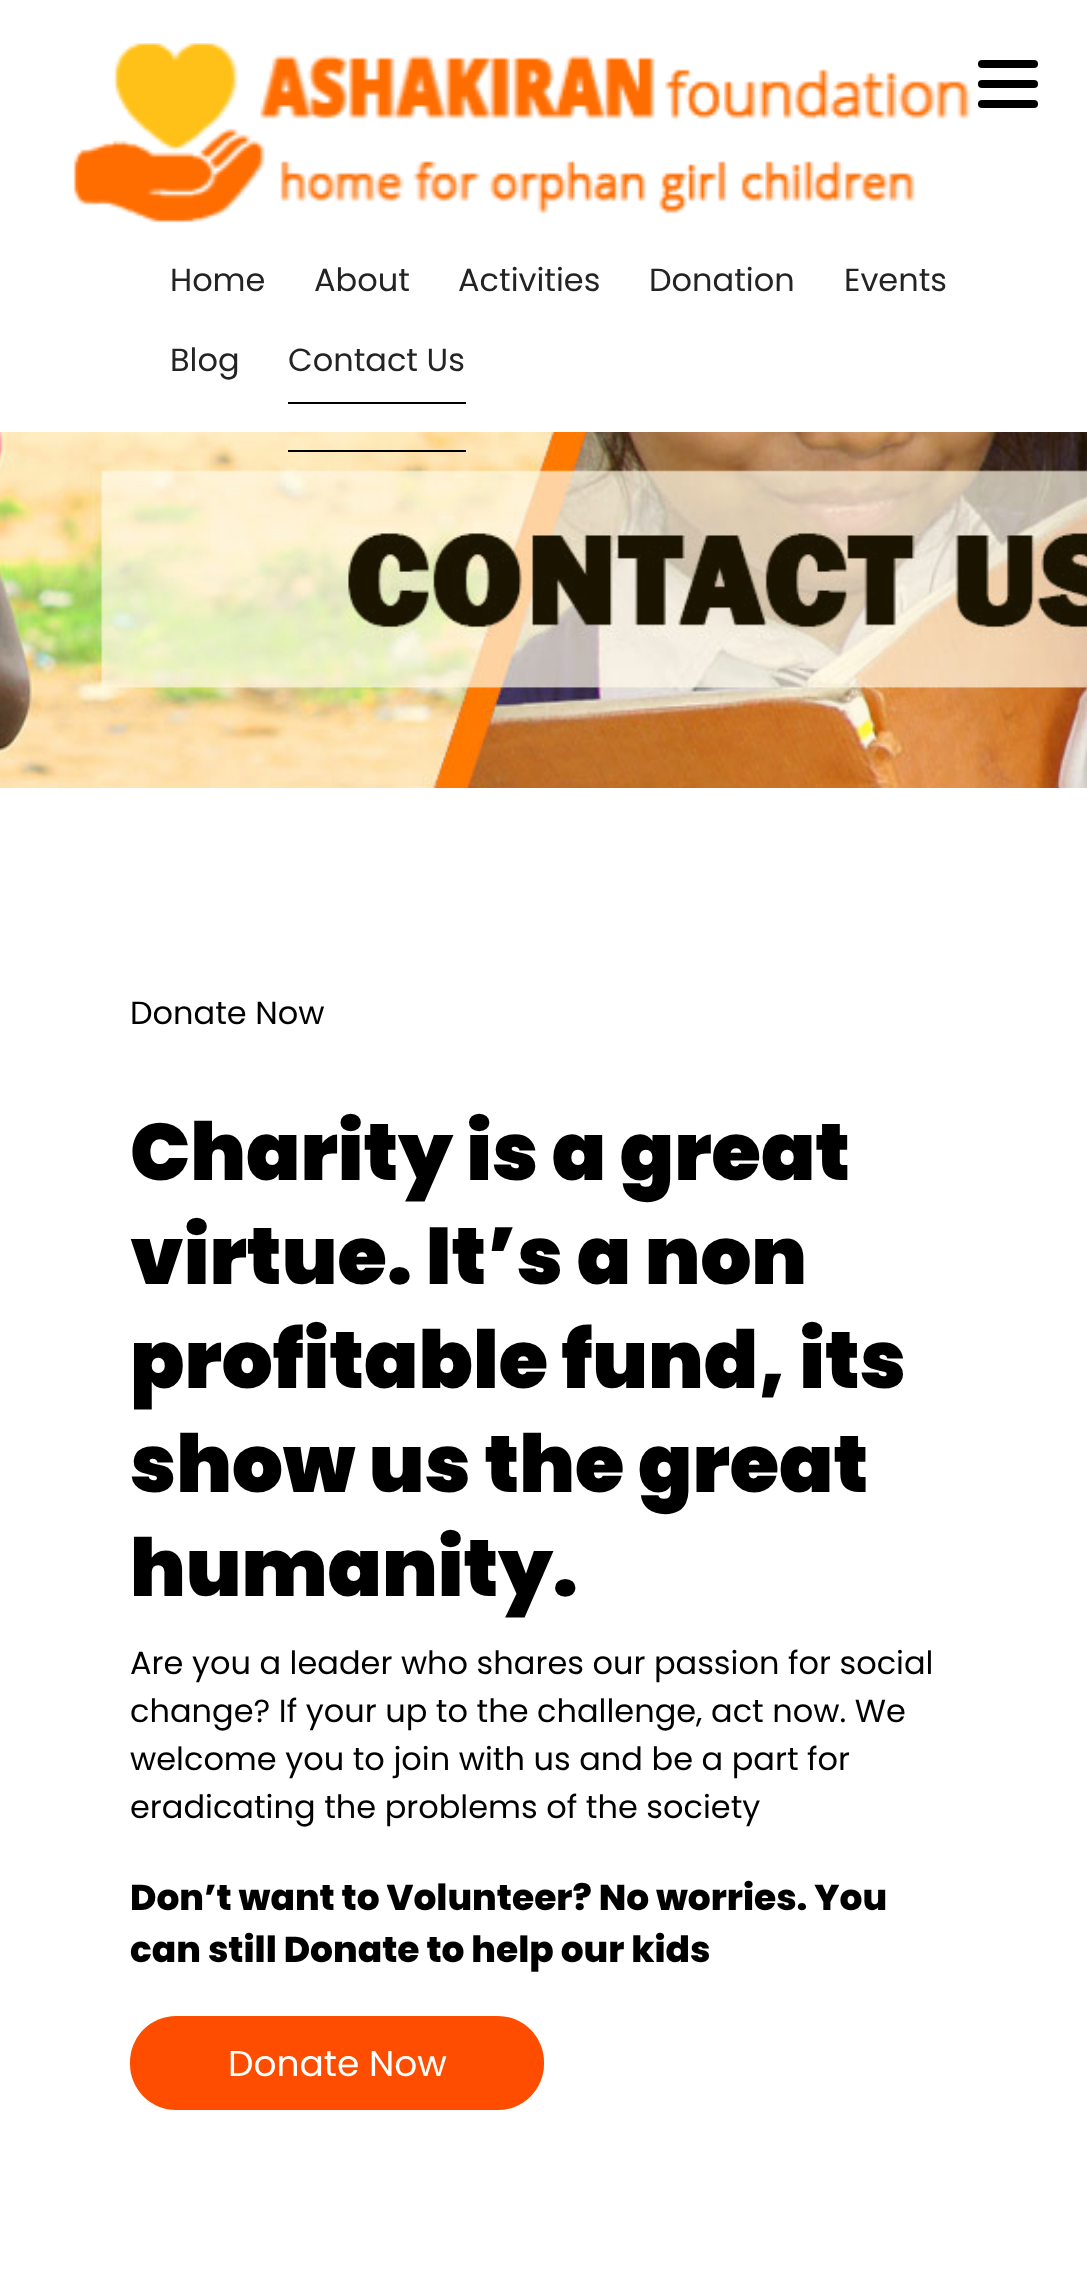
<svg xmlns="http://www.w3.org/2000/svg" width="1087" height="2294">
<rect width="100%" height="100%" fill="#fff"/>
<rect x="978" y="60" width="60" height="8" rx="4" fill="#000"/>
<rect x="978" y="80" width="60" height="8" rx="4" fill="#000"/>
<rect x="978" y="100" width="60" height="8" rx="4" fill="#000"/>
<image x="73" y="43" width="898" height="180" href="media/1.png"/>
<text x="170" y="291" style="font-family:Poppins;font-size:32px;fill:#232323">Home</text>
<text x="314" y="291" style="font-family:Poppins;font-size:32px;fill:#232323">About</text>
<text x="458" y="291" style="font-family:Poppins;font-size:32px;fill:#232323">Activities</text>
<text x="649" y="291" style="font-family:Poppins;font-size:32px;fill:#232323">Donation</text>
<text x="844" y="291" style="font-family:Poppins;font-size:32px;fill:#232323">Events</text>
<text x="170" y="371" style="font-family:Poppins;font-size:32px;fill:#232323">Blog</text>
<text x="288" y="371" style="font-family:Poppins;font-size:32px;fill:#232323">Contact Us</text>
<rect x="288" y="402" width="178" height="2" fill="#000"/>
<image x="0" y="432" width="1087" height="356" href="media/2.png"/>
<rect x="288" y="450" width="178" height="2" fill="#000"/>
<text x="130" y="1024" style="font-family:Poppins;font-size:32px;fill:#000">Donate Now</text>
<text x="130" y="1180" style="font-family:Poppins;font-size:80px;font-weight:900;fill:#000">Charity is a great</text>
<text x="130" y="1284" style="font-family:Poppins;font-size:80px;font-weight:900;fill:#000">virtue. It’s a non</text>
<text x="130" y="1388" style="font-family:Poppins;font-size:80px;font-weight:900;fill:#000">profitable fund, its</text>
<text x="130" y="1492" style="font-family:Poppins;font-size:80px;font-weight:900;fill:#000">show us the great</text>
<text x="130" y="1596" style="font-family:Poppins;font-size:80px;font-weight:900;fill:#000">humanity.</text>
<text x="130" y="1674" style="font-family:Poppins;font-size:32px;fill:#000">Are you a leader who shares our passion for social</text>
<text x="130" y="1722" style="font-family:Poppins;font-size:32px;fill:#000">change? If your up to the challenge, act now. We</text>
<text x="130" y="1770" style="font-family:Poppins;font-size:32px;fill:#000">welcome you to join with us and be a part for</text>
<text x="130" y="1818" style="font-family:Poppins;font-size:32px;fill:#000">eradicating the problems of the society</text>
<text x="130" y="1910" style="font-family:Poppins;font-size:36px;font-weight:800;fill:#000">Don’t want to Volunteer? No worries. You</text>
<text x="130" y="1962" style="font-family:Poppins;font-size:36px;font-weight:800;fill:#000">can still Donate to help our kids</text>
<rect x="130" y="2016" width="414" height="94" rx="46" fill="#ff4d00"/>
<text x="228" y="2076" style="font-family:Poppins;font-size:36px;fill:#fff">Donate Now</text>
</svg>
